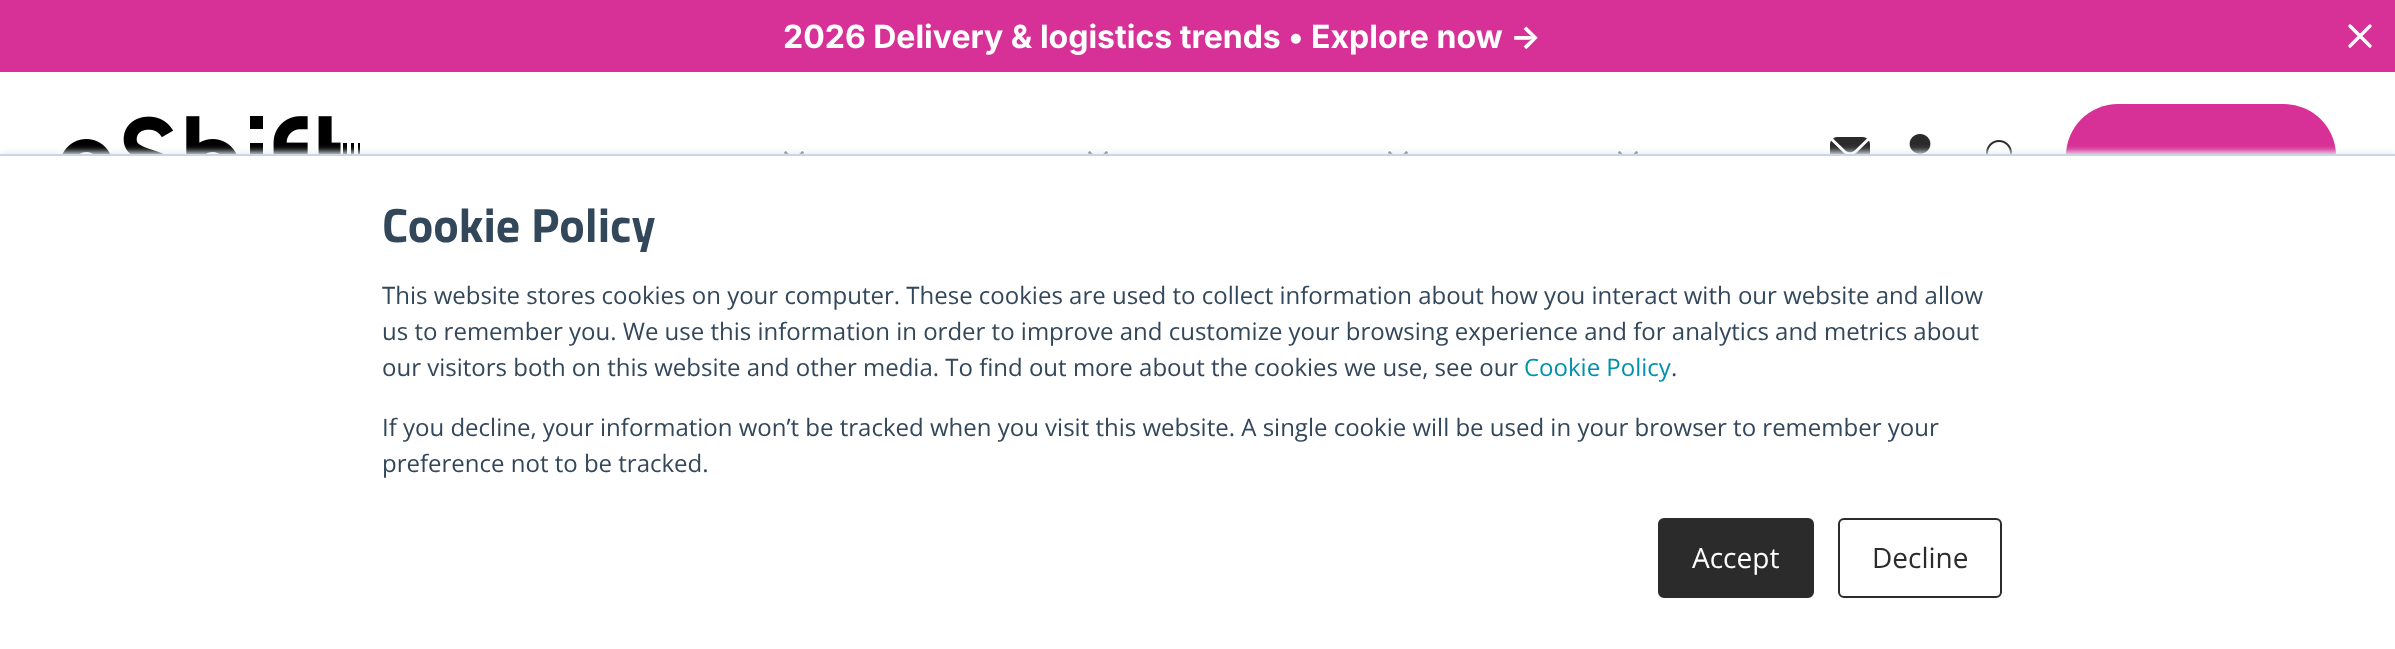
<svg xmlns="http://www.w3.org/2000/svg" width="2395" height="649">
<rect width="100%" height="100%" fill="#fff"/>
<rect width="2395" height="72" fill="#d73096"/>
<text x="783" y="48" style="font-family:Inter;font-size:32px;font-weight:bold;fill:#fff">2026 Delivery &amp; logistics trends • Explore now →</text>
<path d="M2370 26l-20 20m0-20l20 20" fill="none" stroke="#fff" stroke-width="3.3" stroke-linecap="round" stroke-linejoin="round"/>
<image x="62" y="116" width="298" height="38" href="media/1.png"/>
<image x="784" y="151" width="20" height="3" href="media/2.png"/>
<image x="1088" y="151" width="20" height="3" href="media/2.png"/>
<image x="1388" y="151" width="20" height="3" href="media/2.png"/>
<image x="1618" y="151" width="20" height="3" href="media/2.png"/>
<image x="1830" y="137" width="40" height="17" href="media/3.png"/>
<image x="1909" y="134" width="22" height="20" href="media/4.png"/>
<image x="1986" y="140" width="26" height="14" href="media/5.png"/>
<rect x="2066" y="104" width="270" height="104" rx="52" fill="#d73096"/>
<rect y="152" width="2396" height="496" fill="#eaf0f6" filter="blur(3px)"/>
<rect y="156" width="2395" height="493" fill="#fff"/>
<rect y="154" width="2395" height="2" fill="#cbd6e2"/>
<text x="382" y="242" style="font-family:Titillium Web;font-size:48px;font-weight:bold;fill:#33475b">Cookie Policy</text>
<text x="382" y="304" style="font-family:Open Sans;font-size:24px;fill:#33475b">This website stores cookies on your computer. These cookies are used to collect information about how you interact with our website and allow</text>
<text x="382" y="340" style="font-family:Open Sans;font-size:24px;fill:#33475b">us to remember you. We use this information in order to improve and customize your browsing experience and for analytics and metrics about</text>
<text x="382" y="376" style="font-family:Open Sans;font-size:24px;fill:#33475b">our visitors both on this website and other media. To find out more about the cookies we use, see our</text>
<text x="1524" y="376" style="font-family:Open Sans;font-size:24px;fill:#0091ae">Cookie Policy</text>
<text x="1671" y="376" style="font-family:Open Sans;font-size:24px;fill:#33475b">.</text>
<text x="382" y="436" style="font-family:Open Sans;font-size:24px;fill:#33475b">If you decline, your information won’t be tracked when you visit this website. A single cookie will be used in your browser to remember your</text>
<text x="382" y="472" style="font-family:Open Sans;font-size:24px;fill:#33475b">preference not to be tracked.</text>
<rect x="1659" y="519" width="154" height="78" rx="5" fill="#2b2b2b" stroke="#2b2b2b" stroke-width="2"/>
<text x="1692" y="568" style="font-family:Open Sans;font-size:28px;fill:#fff">Accept</text>
<rect x="1839" y="519" width="162" height="78" rx="5" fill="none" stroke="#2b2b2b" stroke-width="2"/>
<text x="1872" y="568" style="font-family:Open Sans;font-size:28px;fill:#2b2b2b">Decline</text>
</svg>
